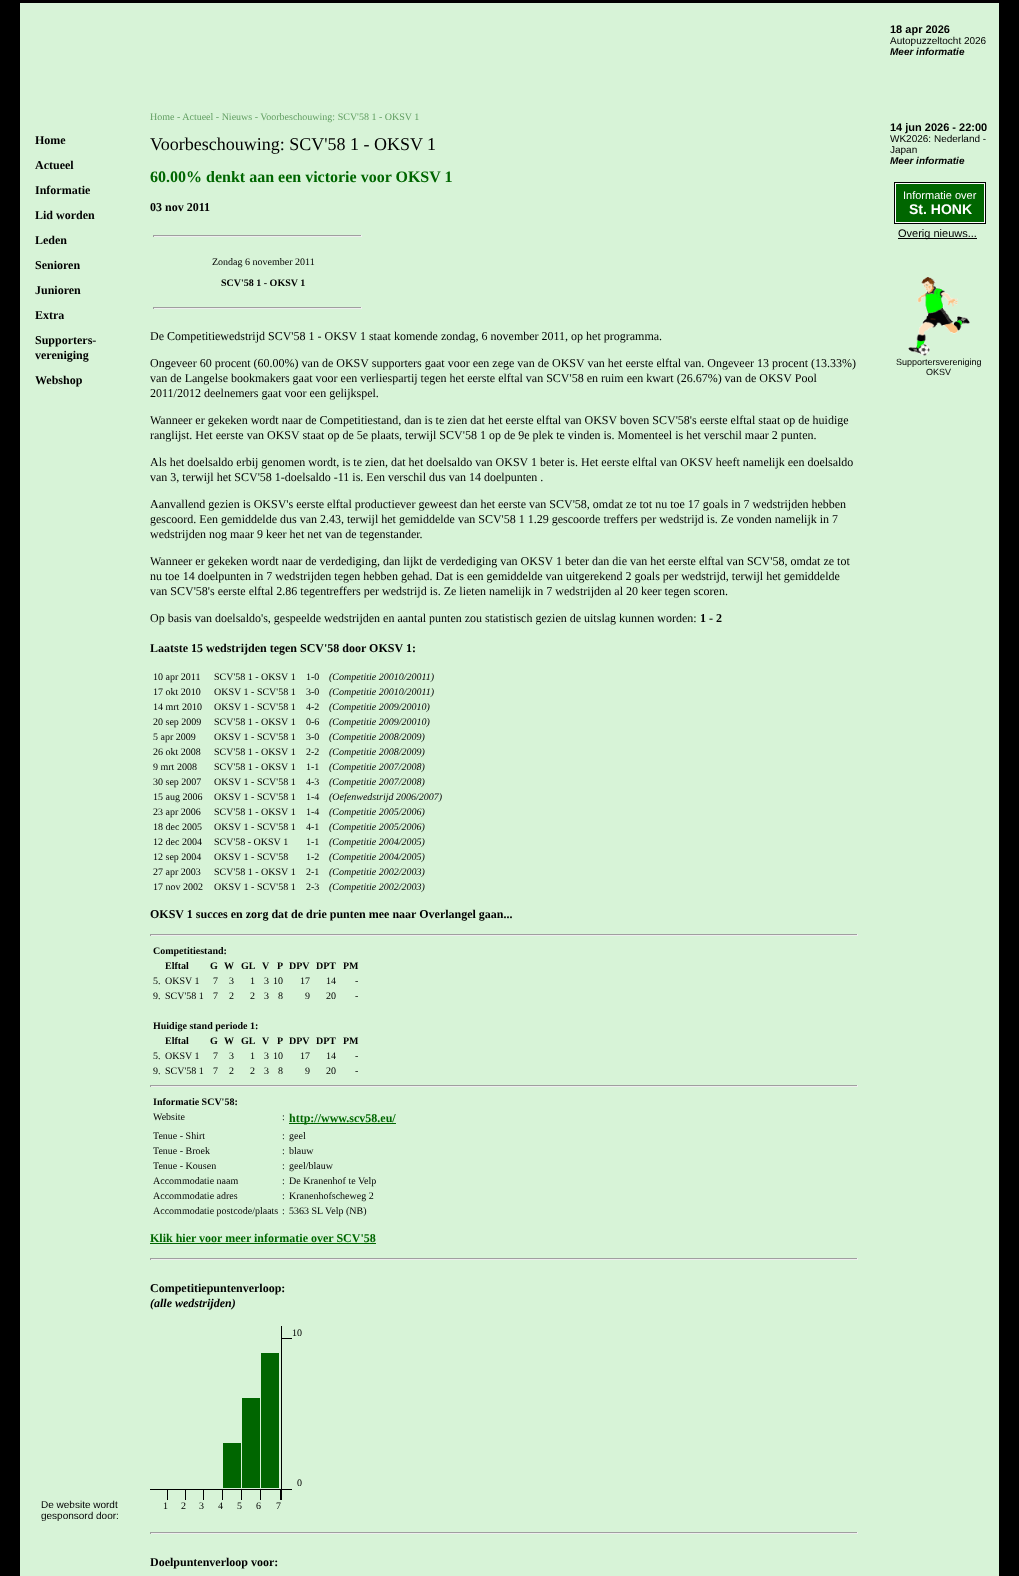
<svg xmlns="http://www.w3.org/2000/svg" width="1019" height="1576">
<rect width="100%" height="100%" fill="#000"/>
<rect x="20" y="3" width="130" height="1573" fill="#d7f3d7"/>
<text x="35" y="144" style="font-family:Liberation Serif;font-size:12px;font-weight:bold;fill:#000">Home</text>
<text x="35" y="169" style="font-family:Liberation Serif;font-size:12px;font-weight:bold;fill:#000">Actueel</text>
<text x="35" y="194" style="font-family:Liberation Serif;font-size:12px;font-weight:bold;fill:#000">Informatie</text>
<text x="35" y="219" style="font-family:Liberation Serif;font-size:12px;font-weight:bold;fill:#000">Lid worden</text>
<text x="35" y="244" style="font-family:Liberation Serif;font-size:12px;font-weight:bold;fill:#000">Leden</text>
<text x="35" y="269" style="font-family:Liberation Serif;font-size:12px;font-weight:bold;fill:#000">Senioren</text>
<text x="35" y="294" style="font-family:Liberation Serif;font-size:12px;font-weight:bold;fill:#000">Junioren</text>
<text x="35" y="319" style="font-family:Liberation Serif;font-size:12px;font-weight:bold;fill:#000">Extra</text>
<text x="35" y="344" style="font-family:Liberation Serif;font-size:12px;font-weight:bold;fill:#000">Supporters-</text>
<text x="35" y="359" style="font-family:Liberation Serif;font-size:12px;font-weight:bold;fill:#000">vereniging</text>
<text x="35" y="384" style="font-family:Liberation Serif;font-size:12px;font-weight:bold;fill:#000">Webshop</text>
<text x="41" y="1508" style="font-family:Liberation Sans;font-size:10px;fill:#000">De website wordt</text>
<text x="41" y="1519" style="font-family:Liberation Sans;font-size:10px;fill:#000">gesponsord door:</text>
<rect x="150" y="3" width="849" height="1573" fill="#d7f3d7"/>
<text x="150" y="120" style="font-family:Liberation Serif;font-size:10px;fill:#629e62">Home - Actueel - Nieuws - Voorbeschouwing: SCV'58 1 - OKSV 1</text>
<text x="150" y="150" style="font-family:Liberation Serif;font-size:18px;fill:#000">Voorbeschouwing: SCV'58 1 - OKSV 1</text>
<text x="150" y="182" style="font-family:Liberation Serif;font-size:16px;font-weight:bold;fill:#060">60.00% denkt aan een victorie voor OKSV 1</text>
<text x="150" y="211" style="font-family:Liberation Serif;font-size:12px;font-weight:bold;fill:#000">03 nov 2011</text>
<rect x="153" y="235" width="209" height="1" fill="#9f9f9f"/>
<rect x="361" y="235" width="1" height="2" fill="#eee"/>
<rect x="153" y="236" width="209" height="1" fill="#eee"/>
<rect x="153" y="235" width="1" height="2" fill="#9f9f9f"/>
<text x="212" y="265" style="font-family:Liberation Serif;font-size:10px;fill:#000">Zondag 6 november 2011</text>
<text x="221" y="286" style="font-family:Liberation Serif;font-size:10px;font-weight:bold;fill:#000">SCV'58 1 - OKSV 1</text>
<rect x="153" y="307" width="209" height="1" fill="#9f9f9f"/>
<rect x="361" y="307" width="1" height="2" fill="#eee"/>
<rect x="153" y="308" width="209" height="1" fill="#eee"/>
<rect x="153" y="307" width="1" height="2" fill="#9f9f9f"/>
<text x="150" y="340" style="font-family:Liberation Serif;font-size:12px;fill:#000">De Competitiewedstrijd SCV'58 1 - OKSV 1 staat komende zondag, 6 november 2011, op het programma.</text>
<text x="150" y="367" style="font-family:Liberation Serif;font-size:12px;fill:#000">Ongeveer 60 procent (60.00%) van de OKSV supporters gaat voor een zege van de OKSV van het eerste elftal van. Ongeveer 13 procent (13.33%)</text>
<text x="150" y="382" style="font-family:Liberation Serif;font-size:12px;fill:#000">van de Langelse bookmakers gaat voor een verliespartij tegen het eerste elftal van SCV'58 en ruim een kwart (26.67%) van de OKSV Pool</text>
<text x="150" y="397" style="font-family:Liberation Serif;font-size:12px;fill:#000">2011/2012 deelnemers gaat voor een gelijkspel.</text>
<text x="150" y="424" style="font-family:Liberation Serif;font-size:12px;fill:#000">Wanneer er gekeken wordt naar de Competitiestand, dan is te zien dat het eerste elftal van OKSV boven SCV'58's eerste elftal staat op de huidige</text>
<text x="150" y="439" style="font-family:Liberation Serif;font-size:12px;fill:#000">ranglijst. Het eerste van OKSV staat op de 5e plaats, terwijl SCV'58 1 op de 9e plek te vinden is. Momenteel is het verschil maar 2 punten.</text>
<text x="150" y="466" style="font-family:Liberation Serif;font-size:12px;fill:#000">Als het doelsaldo erbij genomen wordt, is te zien, dat het doelsaldo van OKSV 1 beter is. Het eerste elftal van OKSV heeft namelijk een doelsaldo</text>
<text x="150" y="481" style="font-family:Liberation Serif;font-size:12px;fill:#000">van 3, terwijl het SCV'58 1-doelsaldo -11 is. Een verschil dus van 14 doelpunten .</text>
<text x="150" y="508" style="font-family:Liberation Serif;font-size:12px;fill:#000">Aanvallend gezien is OKSV's eerste elftal productiever geweest dan het eerste van SCV'58, omdat ze tot nu toe 17 goals in 7 wedstrijden hebben</text>
<text x="150" y="523" style="font-family:Liberation Serif;font-size:12px;fill:#000">gescoord. Een gemiddelde dus van 2.43, terwijl het gemiddelde van SCV'58 1 1.29 gescoorde treffers per wedstrijd is. Ze vonden namelijk in 7</text>
<text x="150" y="538" style="font-family:Liberation Serif;font-size:12px;fill:#000">wedstrijden nog maar 9 keer het net van de tegenstander.</text>
<text x="150" y="565" style="font-family:Liberation Serif;font-size:12px;fill:#000">Wanneer er gekeken wordt naar de verdediging, dan lijkt de verdediging van OKSV 1 beter dan die van het eerste elftal van SCV'58, omdat ze tot</text>
<text x="150" y="580" style="font-family:Liberation Serif;font-size:12px;fill:#000">nu toe 14 doelpunten in 7 wedstrijden tegen hebben gehad. Dat is een gemiddelde van uitgerekend 2 goals per wedstrijd, terwijl het gemiddelde</text>
<text x="150" y="595" style="font-family:Liberation Serif;font-size:12px;fill:#000">van SCV'58's eerste elftal 2.86 tegentreffers per wedstrijd is. Ze lieten namelijk in 7 wedstrijden al 20 keer tegen scoren.</text>
<text x="150" y="622" style="font-family:Liberation Serif;font-size:12px;fill:#000">Op basis van doelsaldo's, gespeelde wedstrijden en aantal punten zou statistisch gezien de uitslag kunnen worden:</text>
<text x="700" y="622" style="font-family:Liberation Serif;font-size:12px;font-weight:bold;fill:#000">1 - 2</text>
<text x="150" y="652" style="font-family:Liberation Serif;font-size:12px;font-weight:bold;fill:#000">Laatste 15 wedstrijden tegen SCV'58 door OKSV 1:</text>
<text x="153" y="680" style="font-family:Liberation Serif;font-size:10px;fill:#000">10 apr 2011</text>
<text x="214" y="680" style="font-family:Liberation Serif;font-size:10px;fill:#000">SCV'58 1 - OKSV 1</text>
<text x="306" y="680" style="font-family:Liberation Serif;font-size:10px;fill:#000">1-0</text>
<text x="329" y="680" style="font-family:Liberation Serif;font-size:10px;font-style:italic;fill:#000">(Competitie 20010/20011)</text>
<text x="153" y="695" style="font-family:Liberation Serif;font-size:10px;fill:#000">17 okt 2010</text>
<text x="214" y="695" style="font-family:Liberation Serif;font-size:10px;fill:#000">OKSV 1 - SCV'58 1</text>
<text x="306" y="695" style="font-family:Liberation Serif;font-size:10px;fill:#000">3-0</text>
<text x="329" y="695" style="font-family:Liberation Serif;font-size:10px;font-style:italic;fill:#000">(Competitie 20010/20011)</text>
<text x="153" y="710" style="font-family:Liberation Serif;font-size:10px;fill:#000">14 mrt 2010</text>
<text x="214" y="710" style="font-family:Liberation Serif;font-size:10px;fill:#000">OKSV 1 - SCV'58 1</text>
<text x="306" y="710" style="font-family:Liberation Serif;font-size:10px;fill:#000">4-2</text>
<text x="329" y="710" style="font-family:Liberation Serif;font-size:10px;font-style:italic;fill:#000">(Competitie 2009/20010)</text>
<text x="153" y="725" style="font-family:Liberation Serif;font-size:10px;fill:#000">20 sep 2009</text>
<text x="214" y="725" style="font-family:Liberation Serif;font-size:10px;fill:#000">SCV'58 1 - OKSV 1</text>
<text x="306" y="725" style="font-family:Liberation Serif;font-size:10px;fill:#000">0-6</text>
<text x="329" y="725" style="font-family:Liberation Serif;font-size:10px;font-style:italic;fill:#000">(Competitie 2009/20010)</text>
<text x="153" y="740" style="font-family:Liberation Serif;font-size:10px;fill:#000">5 apr 2009</text>
<text x="214" y="740" style="font-family:Liberation Serif;font-size:10px;fill:#000">OKSV 1 - SCV'58 1</text>
<text x="306" y="740" style="font-family:Liberation Serif;font-size:10px;fill:#000">3-0</text>
<text x="329" y="740" style="font-family:Liberation Serif;font-size:10px;font-style:italic;fill:#000">(Competitie 2008/2009)</text>
<text x="153" y="755" style="font-family:Liberation Serif;font-size:10px;fill:#000">26 okt 2008</text>
<text x="214" y="755" style="font-family:Liberation Serif;font-size:10px;fill:#000">SCV'58 1 - OKSV 1</text>
<text x="306" y="755" style="font-family:Liberation Serif;font-size:10px;fill:#000">2-2</text>
<text x="329" y="755" style="font-family:Liberation Serif;font-size:10px;font-style:italic;fill:#000">(Competitie 2008/2009)</text>
<text x="153" y="770" style="font-family:Liberation Serif;font-size:10px;fill:#000">9 mrt 2008</text>
<text x="214" y="770" style="font-family:Liberation Serif;font-size:10px;fill:#000">SCV'58 1 - OKSV 1</text>
<text x="306" y="770" style="font-family:Liberation Serif;font-size:10px;fill:#000">1-1</text>
<text x="329" y="770" style="font-family:Liberation Serif;font-size:10px;font-style:italic;fill:#000">(Competitie 2007/2008)</text>
<text x="153" y="785" style="font-family:Liberation Serif;font-size:10px;fill:#000">30 sep 2007</text>
<text x="214" y="785" style="font-family:Liberation Serif;font-size:10px;fill:#000">OKSV 1 - SCV'58 1</text>
<text x="306" y="785" style="font-family:Liberation Serif;font-size:10px;fill:#000">4-3</text>
<text x="329" y="785" style="font-family:Liberation Serif;font-size:10px;font-style:italic;fill:#000">(Competitie 2007/2008)</text>
<text x="153" y="800" style="font-family:Liberation Serif;font-size:10px;fill:#000">15 aug 2006</text>
<text x="214" y="800" style="font-family:Liberation Serif;font-size:10px;fill:#000">OKSV 1 - SCV'58 1</text>
<text x="306" y="800" style="font-family:Liberation Serif;font-size:10px;fill:#000">1-4</text>
<text x="329" y="800" style="font-family:Liberation Serif;font-size:10px;font-style:italic;fill:#000">(Oefenwedstrijd 2006/2007)</text>
<text x="153" y="815" style="font-family:Liberation Serif;font-size:10px;fill:#000">23 apr 2006</text>
<text x="214" y="815" style="font-family:Liberation Serif;font-size:10px;fill:#000">SCV'58 1 - OKSV 1</text>
<text x="306" y="815" style="font-family:Liberation Serif;font-size:10px;fill:#000">1-4</text>
<text x="329" y="815" style="font-family:Liberation Serif;font-size:10px;font-style:italic;fill:#000">(Competitie 2005/2006)</text>
<text x="153" y="830" style="font-family:Liberation Serif;font-size:10px;fill:#000">18 dec 2005</text>
<text x="214" y="830" style="font-family:Liberation Serif;font-size:10px;fill:#000">OKSV 1 - SCV'58 1</text>
<text x="306" y="830" style="font-family:Liberation Serif;font-size:10px;fill:#000">4-1</text>
<text x="329" y="830" style="font-family:Liberation Serif;font-size:10px;font-style:italic;fill:#000">(Competitie 2005/2006)</text>
<text x="153" y="845" style="font-family:Liberation Serif;font-size:10px;fill:#000">12 dec 2004</text>
<text x="214" y="845" style="font-family:Liberation Serif;font-size:10px;fill:#000">SCV'58 - OKSV 1</text>
<text x="306" y="845" style="font-family:Liberation Serif;font-size:10px;fill:#000">1-1</text>
<text x="329" y="845" style="font-family:Liberation Serif;font-size:10px;font-style:italic;fill:#000">(Competitie 2004/2005)</text>
<text x="153" y="860" style="font-family:Liberation Serif;font-size:10px;fill:#000">12 sep 2004</text>
<text x="214" y="860" style="font-family:Liberation Serif;font-size:10px;fill:#000">OKSV 1 - SCV'58</text>
<text x="306" y="860" style="font-family:Liberation Serif;font-size:10px;fill:#000">1-2</text>
<text x="329" y="860" style="font-family:Liberation Serif;font-size:10px;font-style:italic;fill:#000">(Competitie 2004/2005)</text>
<text x="153" y="875" style="font-family:Liberation Serif;font-size:10px;fill:#000">27 apr 2003</text>
<text x="214" y="875" style="font-family:Liberation Serif;font-size:10px;fill:#000">SCV'58 1 - OKSV 1</text>
<text x="306" y="875" style="font-family:Liberation Serif;font-size:10px;fill:#000">2-1</text>
<text x="329" y="875" style="font-family:Liberation Serif;font-size:10px;font-style:italic;fill:#000">(Competitie 2002/2003)</text>
<text x="153" y="890" style="font-family:Liberation Serif;font-size:10px;fill:#000">17 nov 2002</text>
<text x="214" y="890" style="font-family:Liberation Serif;font-size:10px;fill:#000">OKSV 1 - SCV'58 1</text>
<text x="306" y="890" style="font-family:Liberation Serif;font-size:10px;fill:#000">2-3</text>
<text x="329" y="890" style="font-family:Liberation Serif;font-size:10px;font-style:italic;fill:#000">(Competitie 2002/2003)</text>
<text x="150" y="918" style="font-family:Liberation Serif;font-size:12px;font-weight:bold;fill:#000">OKSV 1 succes en zorg dat de drie punten mee naar Overlangel gaan...</text>
<rect x="150" y="934" width="708" height="1" fill="#9f9f9f"/>
<rect x="857" y="934" width="1" height="2" fill="#eee"/>
<rect x="150" y="935" width="708" height="1" fill="#eee"/>
<rect x="150" y="934" width="1" height="2" fill="#9f9f9f"/>
<text x="153" y="954" style="font-family:Liberation Serif;font-size:10px;font-weight:bold;fill:#000">Competitiestand:</text>
<text x="165" y="969" style="font-family:Liberation Serif;font-size:10px;font-weight:bold;fill:#000">Elftal</text>
<text x="210" y="969" style="font-family:Liberation Serif;font-size:10px;font-weight:bold;fill:#000">G</text>
<text x="224" y="969" style="font-family:Liberation Serif;font-size:10px;font-weight:bold;fill:#000">W</text>
<text x="241" y="969" style="font-family:Liberation Serif;font-size:10px;font-weight:bold;fill:#000">GL</text>
<text x="262" y="969" style="font-family:Liberation Serif;font-size:10px;font-weight:bold;fill:#000">V</text>
<text x="277" y="969" style="font-family:Liberation Serif;font-size:10px;font-weight:bold;fill:#000">P</text>
<text x="289" y="969" style="font-family:Liberation Serif;font-size:10px;font-weight:bold;fill:#000">DPV</text>
<text x="316" y="969" style="font-family:Liberation Serif;font-size:10px;font-weight:bold;fill:#000">DPT</text>
<text x="343" y="969" style="font-family:Liberation Serif;font-size:10px;font-weight:bold;fill:#000">PM</text>
<text x="153" y="984" style="font-family:Liberation Serif;font-size:10px;fill:#000">5.</text>
<text x="165" y="984" style="font-family:Liberation Serif;font-size:10px;fill:#000">OKSV 1</text>
<text x="213" y="984" style="font-family:Liberation Serif;font-size:10px;fill:#000">7</text>
<text x="229" y="984" style="font-family:Liberation Serif;font-size:10px;fill:#000">3</text>
<text x="250" y="984" style="font-family:Liberation Serif;font-size:10px;fill:#000">1</text>
<text x="264" y="984" style="font-family:Liberation Serif;font-size:10px;fill:#000">3</text>
<text x="273" y="984" style="font-family:Liberation Serif;font-size:10px;fill:#000">10</text>
<text x="300" y="984" style="font-family:Liberation Serif;font-size:10px;fill:#000">17</text>
<text x="326" y="984" style="font-family:Liberation Serif;font-size:10px;fill:#000">14</text>
<text x="355" y="984" style="font-family:Liberation Serif;font-size:10px;fill:#000">-</text>
<text x="153" y="999" style="font-family:Liberation Serif;font-size:10px;fill:#000">9.</text>
<text x="165" y="999" style="font-family:Liberation Serif;font-size:10px;fill:#000">SCV'58 1</text>
<text x="213" y="999" style="font-family:Liberation Serif;font-size:10px;fill:#000">7</text>
<text x="229" y="999" style="font-family:Liberation Serif;font-size:10px;fill:#000">2</text>
<text x="250" y="999" style="font-family:Liberation Serif;font-size:10px;fill:#000">2</text>
<text x="264" y="999" style="font-family:Liberation Serif;font-size:10px;fill:#000">3</text>
<text x="278" y="999" style="font-family:Liberation Serif;font-size:10px;fill:#000">8</text>
<text x="305" y="999" style="font-family:Liberation Serif;font-size:10px;fill:#000">9</text>
<text x="326" y="999" style="font-family:Liberation Serif;font-size:10px;fill:#000">20</text>
<text x="355" y="999" style="font-family:Liberation Serif;font-size:10px;fill:#000">-</text>
<text x="153" y="1029" style="font-family:Liberation Serif;font-size:10px;font-weight:bold;fill:#000">Huidige stand periode 1:</text>
<text x="165" y="1044" style="font-family:Liberation Serif;font-size:10px;font-weight:bold;fill:#000">Elftal</text>
<text x="210" y="1044" style="font-family:Liberation Serif;font-size:10px;font-weight:bold;fill:#000">G</text>
<text x="224" y="1044" style="font-family:Liberation Serif;font-size:10px;font-weight:bold;fill:#000">W</text>
<text x="241" y="1044" style="font-family:Liberation Serif;font-size:10px;font-weight:bold;fill:#000">GL</text>
<text x="262" y="1044" style="font-family:Liberation Serif;font-size:10px;font-weight:bold;fill:#000">V</text>
<text x="277" y="1044" style="font-family:Liberation Serif;font-size:10px;font-weight:bold;fill:#000">P</text>
<text x="289" y="1044" style="font-family:Liberation Serif;font-size:10px;font-weight:bold;fill:#000">DPV</text>
<text x="316" y="1044" style="font-family:Liberation Serif;font-size:10px;font-weight:bold;fill:#000">DPT</text>
<text x="343" y="1044" style="font-family:Liberation Serif;font-size:10px;font-weight:bold;fill:#000">PM</text>
<text x="153" y="1059" style="font-family:Liberation Serif;font-size:10px;fill:#000">5.</text>
<text x="165" y="1059" style="font-family:Liberation Serif;font-size:10px;fill:#000">OKSV 1</text>
<text x="213" y="1059" style="font-family:Liberation Serif;font-size:10px;fill:#000">7</text>
<text x="229" y="1059" style="font-family:Liberation Serif;font-size:10px;fill:#000">3</text>
<text x="250" y="1059" style="font-family:Liberation Serif;font-size:10px;fill:#000">1</text>
<text x="264" y="1059" style="font-family:Liberation Serif;font-size:10px;fill:#000">3</text>
<text x="273" y="1059" style="font-family:Liberation Serif;font-size:10px;fill:#000">10</text>
<text x="300" y="1059" style="font-family:Liberation Serif;font-size:10px;fill:#000">17</text>
<text x="326" y="1059" style="font-family:Liberation Serif;font-size:10px;fill:#000">14</text>
<text x="355" y="1059" style="font-family:Liberation Serif;font-size:10px;fill:#000">-</text>
<text x="153" y="1074" style="font-family:Liberation Serif;font-size:10px;fill:#000">9.</text>
<text x="165" y="1074" style="font-family:Liberation Serif;font-size:10px;fill:#000">SCV'58 1</text>
<text x="213" y="1074" style="font-family:Liberation Serif;font-size:10px;fill:#000">7</text>
<text x="229" y="1074" style="font-family:Liberation Serif;font-size:10px;fill:#000">2</text>
<text x="250" y="1074" style="font-family:Liberation Serif;font-size:10px;fill:#000">2</text>
<text x="264" y="1074" style="font-family:Liberation Serif;font-size:10px;fill:#000">3</text>
<text x="278" y="1074" style="font-family:Liberation Serif;font-size:10px;fill:#000">8</text>
<text x="305" y="1074" style="font-family:Liberation Serif;font-size:10px;fill:#000">9</text>
<text x="326" y="1074" style="font-family:Liberation Serif;font-size:10px;fill:#000">20</text>
<text x="355" y="1074" style="font-family:Liberation Serif;font-size:10px;fill:#000">-</text>
<rect x="150" y="1085" width="708" height="1" fill="#9f9f9f"/>
<rect x="857" y="1085" width="1" height="2" fill="#eee"/>
<rect x="150" y="1086" width="708" height="1" fill="#eee"/>
<rect x="150" y="1085" width="1" height="2" fill="#9f9f9f"/>
<text x="153" y="1105" style="font-family:Liberation Serif;font-size:10px;font-weight:bold;fill:#000">Informatie SCV'58:</text>
<text x="153" y="1120" style="font-family:Liberation Serif;font-size:10px;fill:#000">Website</text>
<text x="282" y="1120" style="font-family:Liberation Serif;font-size:10px;fill:#000">:</text>
<rect x="289" y="1123" width="107" height="1" fill="#060"/>
<text x="289" y="1122" style="font-family:Liberation Serif;font-size:12px;font-weight:bold;fill:#060">http://www.scv58.eu/</text>
<text x="153" y="1139" style="font-family:Liberation Serif;font-size:10px;fill:#000">Tenue - Shirt</text>
<text x="282" y="1139" style="font-family:Liberation Serif;font-size:10px;fill:#000">:</text>
<text x="289" y="1139" style="font-family:Liberation Serif;font-size:10px;fill:#000">geel</text>
<text x="153" y="1154" style="font-family:Liberation Serif;font-size:10px;fill:#000">Tenue - Broek</text>
<text x="282" y="1154" style="font-family:Liberation Serif;font-size:10px;fill:#000">:</text>
<text x="289" y="1154" style="font-family:Liberation Serif;font-size:10px;fill:#000">blauw</text>
<text x="153" y="1169" style="font-family:Liberation Serif;font-size:10px;fill:#000">Tenue - Kousen</text>
<text x="282" y="1169" style="font-family:Liberation Serif;font-size:10px;fill:#000">:</text>
<text x="289" y="1169" style="font-family:Liberation Serif;font-size:10px;fill:#000">geel/blauw</text>
<text x="153" y="1184" style="font-family:Liberation Serif;font-size:10px;fill:#000">Accommodatie naam</text>
<text x="282" y="1184" style="font-family:Liberation Serif;font-size:10px;fill:#000">:</text>
<text x="289" y="1184" style="font-family:Liberation Serif;font-size:10px;fill:#000">De Kranenhof te Velp</text>
<text x="153" y="1199" style="font-family:Liberation Serif;font-size:10px;fill:#000">Accommodatie adres</text>
<text x="282" y="1199" style="font-family:Liberation Serif;font-size:10px;fill:#000">:</text>
<text x="289" y="1199" style="font-family:Liberation Serif;font-size:10px;fill:#000">Kranenhofscheweg 2</text>
<text x="153" y="1214" style="font-family:Liberation Serif;font-size:10px;fill:#000">Accommodatie postcode/plaats</text>
<text x="282" y="1214" style="font-family:Liberation Serif;font-size:10px;fill:#000">:</text>
<text x="289" y="1214" style="font-family:Liberation Serif;font-size:10px;fill:#000">5363 SL Velp (NB)</text>
<text x="150" y="1242" style="font-family:Liberation Serif;font-size:12px;font-weight:bold;fill:#060">Klik hier voor meer informatie over SCV'58</text>
<rect x="150" y="1243" width="226" height="1" fill="#060"/>
<rect x="150" y="1258" width="708" height="1" fill="#9f9f9f"/>
<rect x="857" y="1258" width="1" height="2" fill="#eee"/>
<rect x="150" y="1259" width="708" height="1" fill="#eee"/>
<rect x="150" y="1258" width="1" height="2" fill="#9f9f9f"/>
<text x="150" y="1292" style="font-family:Liberation Serif;font-size:12px;font-weight:bold;fill:#000">Competitiepuntenverloop:</text>
<text x="150" y="1307" style="font-family:Liberation Serif;font-size:12px;font-weight:bold;font-style:italic;fill:#000">(alle wedstrijden)</text>
<rect x="223" y="1443" width="18" height="45" fill="#060"/>
<rect x="242" y="1398" width="18" height="90" fill="#060"/>
<rect x="261" y="1353" width="18" height="135" fill="#060"/>
<rect x="281" y="1338" width="11" height="1" fill="#000"/>
<rect x="281" y="1326" width="1" height="163" fill="#000"/>
<text x="292" y="1336" style="font-family:Liberation Serif;font-size:10px;fill:#000">10</text>
<text x="297" y="1486" style="font-family:Liberation Serif;font-size:10px;fill:#000">0</text>
<rect x="150" y="1489" width="142" height="1" fill="#000"/>
<rect x="167" y="1489" width="1" height="11" fill="#000"/>
<rect x="185" y="1489" width="1" height="11" fill="#000"/>
<rect x="203" y="1489" width="1" height="11" fill="#000"/>
<rect x="222" y="1489" width="1" height="11" fill="#000"/>
<rect x="241" y="1489" width="1" height="11" fill="#000"/>
<rect x="260" y="1489" width="1" height="11" fill="#000"/>
<rect x="280" y="1489" width="2" height="11" fill="#000"/>
<text x="163" y="1509" style="font-family:Liberation Serif;font-size:10px;fill:#000">1</text>
<text x="181" y="1509" style="font-family:Liberation Serif;font-size:10px;fill:#000">2</text>
<text x="199" y="1509" style="font-family:Liberation Serif;font-size:10px;fill:#000">3</text>
<text x="218" y="1509" style="font-family:Liberation Serif;font-size:10px;fill:#000">4</text>
<text x="237" y="1509" style="font-family:Liberation Serif;font-size:10px;fill:#000">5</text>
<text x="256" y="1509" style="font-family:Liberation Serif;font-size:10px;fill:#000">6</text>
<text x="276" y="1509" style="font-family:Liberation Serif;font-size:10px;fill:#000">7</text>
<rect x="150" y="1532" width="708" height="1" fill="#9f9f9f"/>
<rect x="857" y="1532" width="1" height="2" fill="#eee"/>
<rect x="150" y="1533" width="708" height="1" fill="#eee"/>
<rect x="150" y="1532" width="1" height="2" fill="#9f9f9f"/>
<text x="150" y="1566" style="font-family:Liberation Serif;font-size:12px;font-weight:bold;fill:#000">Doelpuntenverloop voor:</text>
<text x="890" y="33" style="font-family:Liberation Sans;font-size:11px;font-weight:bold;fill:#000">18 apr 2026</text>
<text x="890" y="44" style="font-family:Liberation Sans;font-size:10px;fill:#000">Autopuzzeltocht 2026</text>
<text x="890" y="55" style="font-family:Liberation Sans;font-size:10px;font-weight:bold;font-style:italic;fill:#000">Meer informatie</text>
<text x="890" y="131" style="font-family:Liberation Sans;font-size:11px;font-weight:bold;fill:#000">14 jun 2026 - 22:00</text>
<text x="890" y="142" style="font-family:Liberation Sans;font-size:10px;fill:#000">WK2026: Nederland -</text>
<text x="890" y="153" style="font-family:Liberation Sans;font-size:10px;fill:#000">Japan</text>
<text x="890" y="164" style="font-family:Liberation Sans;font-size:10px;font-weight:bold;font-style:italic;fill:#000">Meer informatie</text>
<rect x="896" y="184" width="88" height="38" fill="#060"/>
<rect x="894.5" y="182.5" width="91" height="41" fill="none" stroke="#000"/>
<rect x="895.5" y="183.5" width="89" height="39" fill="none" stroke="#fff"/>
<text x="903" y="199" style="font-family:Liberation Sans;font-size:11px;fill:#fff">Informatie over</text>
<text x="909" y="214" style="font-family:Liberation Sans;font-size:14px;font-weight:bold;fill:#fff">St. HONK</text>
<rect x="898" y="238" width="79" height="1" fill="#000"/>
<text x="898" y="237" style="font-family:Liberation Sans;font-size:11px;fill:#000">Overig nieuws...</text>
<image x="908" y="277" width="62" height="79" href="media/1.png"/>
<text x="896" y="365" style="font-family:Liberation Sans;font-size:9px;fill:#000">Supportersvereniging</text>
<text x="926" y="375" style="font-family:Liberation Sans;font-size:9px;fill:#000">OKSV</text>
</svg>
